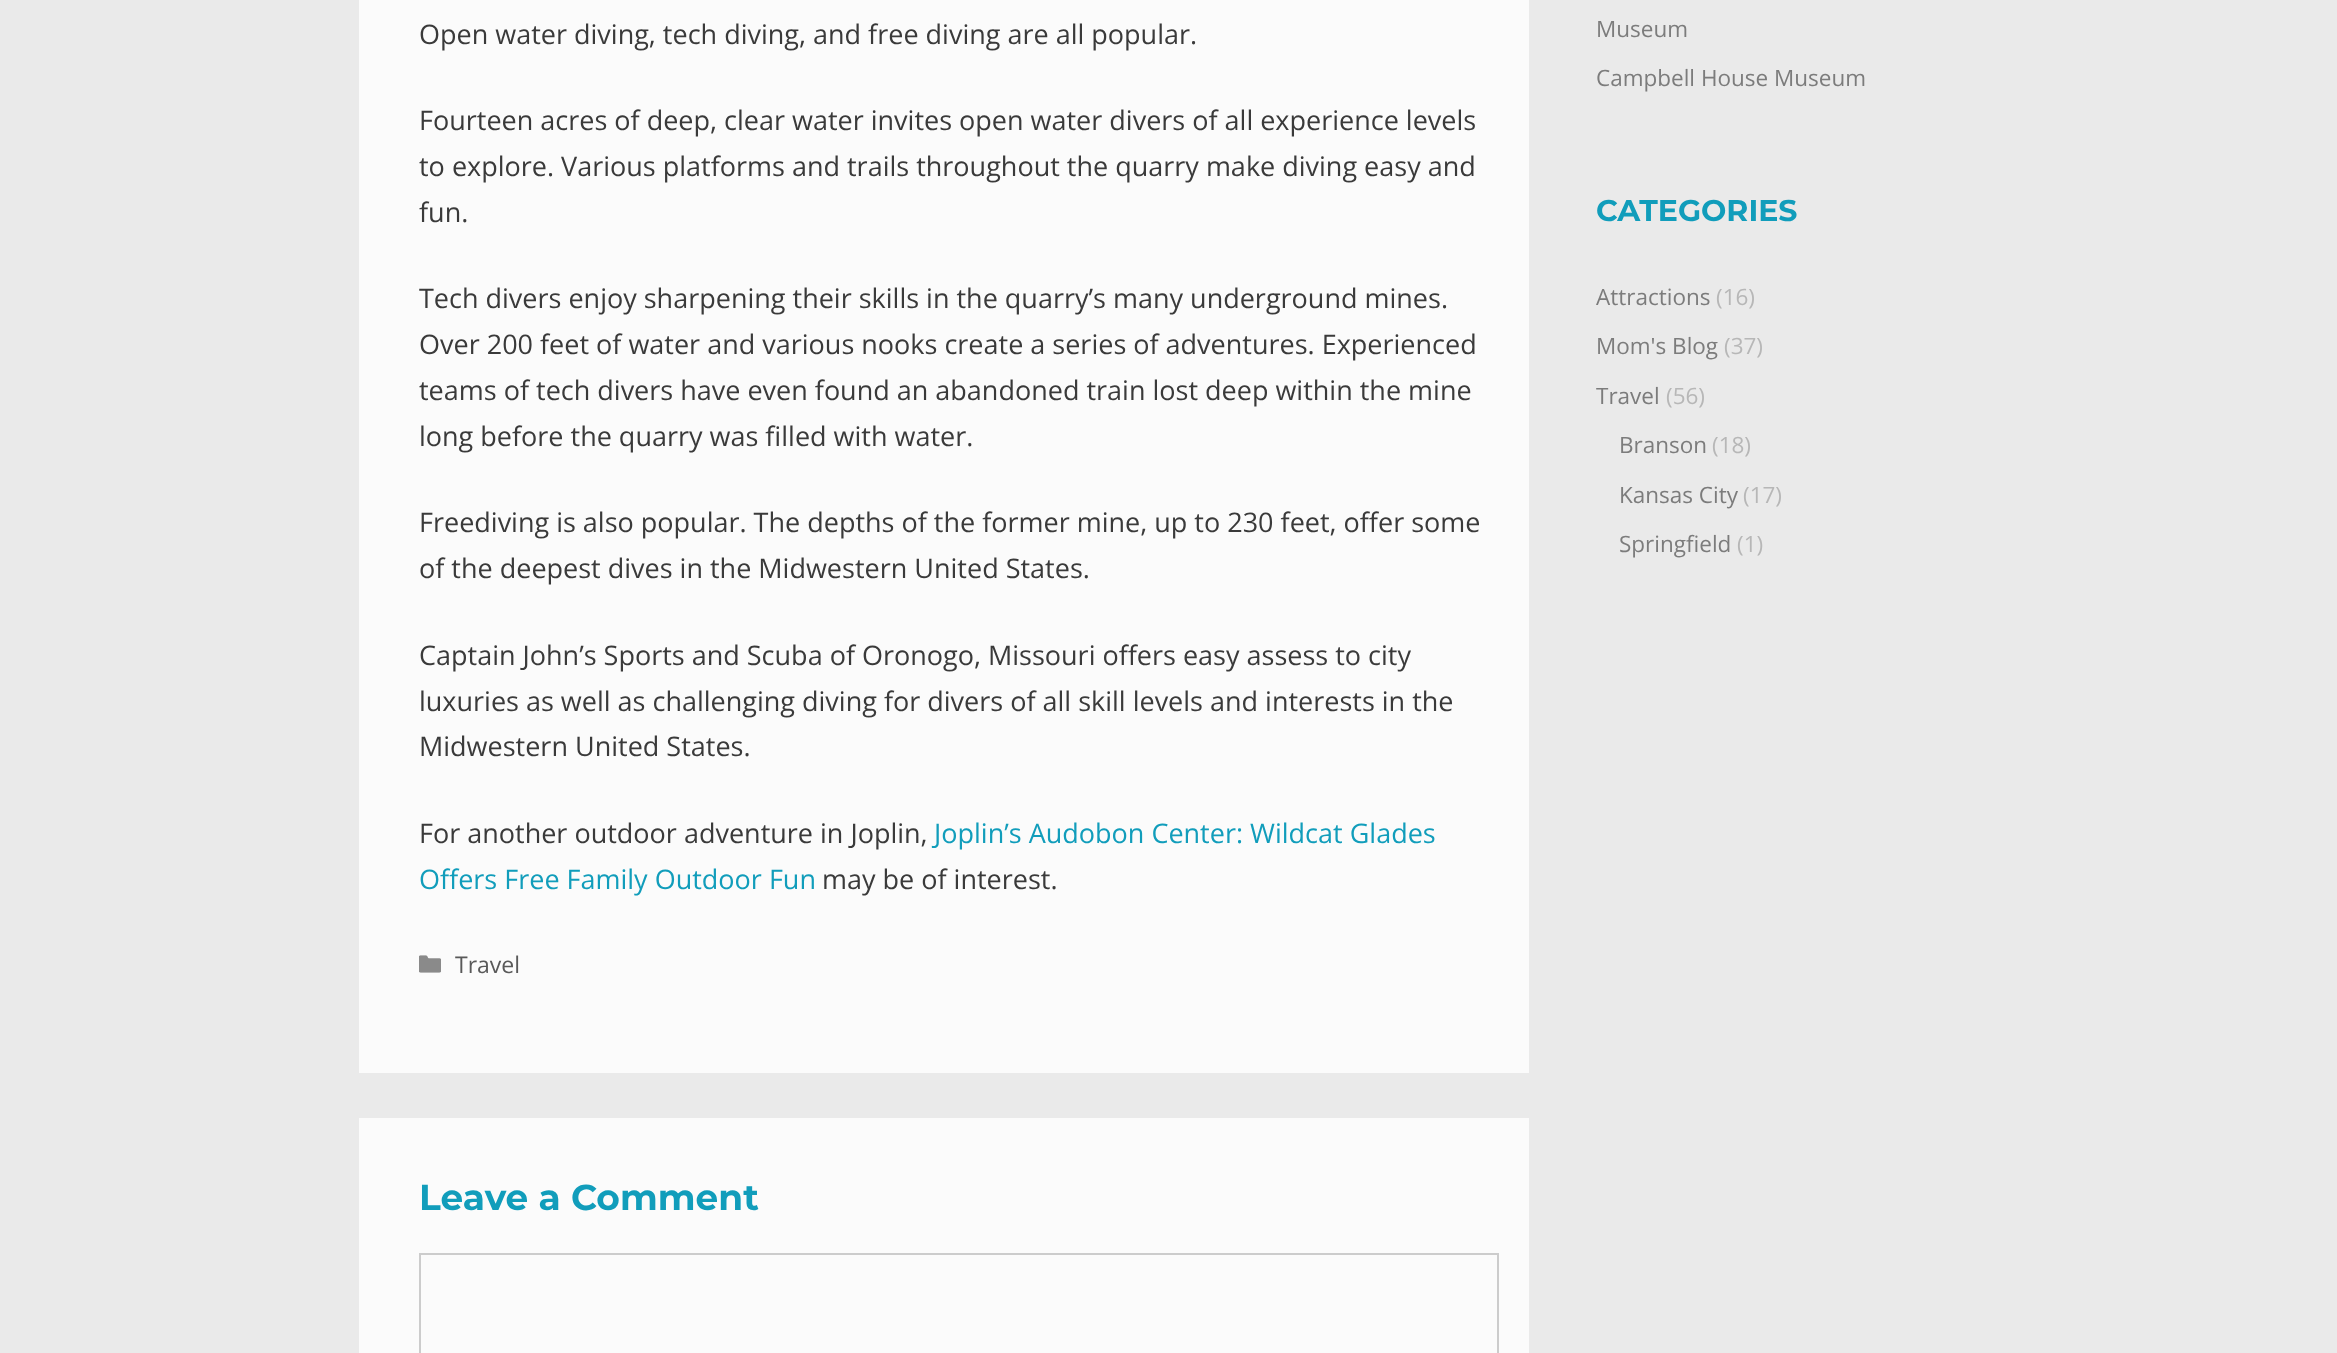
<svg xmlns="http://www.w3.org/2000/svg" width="2337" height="1353">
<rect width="100%" height="100%" fill="#eaeaea"/>
<rect x="359" width="1170" height="1073" fill="#fbfbfb"/>
<text x="419" y="44" style="font-family:Open Sans;font-size:27px;fill:#3a3a3a">Open water diving, tech diving, and free diving are all popular.</text>
<text x="419" y="130" style="font-family:Open Sans;font-size:27px;fill:#3a3a3a">Fourteen acres of deep, clear water invites open water divers of all experience levels</text>
<text x="419" y="176" style="font-family:Open Sans;font-size:27px;fill:#3a3a3a">to explore. Various platforms and trails throughout the quarry make diving easy and</text>
<text x="419" y="222" style="font-family:Open Sans;font-size:27px;fill:#3a3a3a">fun.</text>
<text x="419" y="308" style="font-family:Open Sans;font-size:27px;fill:#3a3a3a">Tech divers enjoy sharpening their skills in the quarry’s many underground mines.</text>
<text x="419" y="354" style="font-family:Open Sans;font-size:27px;fill:#3a3a3a">Over 200 feet of water and various nooks create a series of adventures. Experienced</text>
<text x="419" y="400" style="font-family:Open Sans;font-size:27px;fill:#3a3a3a">teams of tech divers have even found an abandoned train lost deep within the mine</text>
<text x="419" y="446" style="font-family:Open Sans;font-size:27px;fill:#3a3a3a">long before the quarry was filled with water.</text>
<text x="419" y="532" style="font-family:Open Sans;font-size:27px;fill:#3a3a3a">Freediving is also popular. The depths of the former mine, up to 230 feet, offer some</text>
<text x="419" y="578" style="font-family:Open Sans;font-size:27px;fill:#3a3a3a">of the deepest dives in the Midwestern United States.</text>
<text x="419" y="665" style="font-family:Open Sans;font-size:27px;fill:#3a3a3a">Captain John’s Sports and Scuba of Oronogo, Missouri offers easy assess to city</text>
<text x="419" y="711" style="font-family:Open Sans;font-size:27px;fill:#3a3a3a">luxuries as well as challenging diving for divers of all skill levels and interests in the</text>
<text x="419" y="756" style="font-family:Open Sans;font-size:27px;fill:#3a3a3a">Midwestern United States.</text>
<text x="419" y="843" style="font-family:Open Sans;font-size:27px;fill:#3a3a3a">For another outdoor adventure in Joplin,</text>
<text x="934" y="843" style="font-family:Open Sans;font-size:27px;fill:#119dbb">Joplin’s Audobon Center: Wildcat Glades</text>
<text x="419" y="889" style="font-family:Open Sans;font-size:27px;fill:#119dbb">Offers Free Family Outdoor Fun</text>
<text x="822" y="889" style="font-family:Open Sans;font-size:27px;fill:#3a3a3a">may be of interest.</text>
<image x="419" y="955" width="22" height="18" href="media/1.png"/>
<text x="455" y="973" style="font-family:Open Sans;font-size:23px;fill:#595959">Travel</text>
<rect x="359" y="1118" width="1170" height="235" fill="#fbfbfb"/>
<text x="419" y="1210" style="font-family:Montserrat;font-size:36px;font-weight:bold;fill:#119dbb">Leave a Comment</text>
<rect x="420" y="1254" width="1078" height="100" fill="none" stroke="#ccc" stroke-width="2"/>
<text x="1596" y="37" style="font-family:Open Sans;font-size:22.5px;fill:#7c7c7c">Museum</text>
<text x="1596" y="86" style="font-family:Open Sans;font-size:22.5px;fill:#7c7c7c">Campbell House Museum</text>
<text x="1596" y="221" style="font-family:Montserrat;font-size:30px;font-weight:bold;fill:#119dbb">CATEGORIES</text>
<text x="1596" y="305" style="font-family:Open Sans;font-size:22.5px;fill:#7c7c7c">Attractions</text>
<text x="1716" y="305" style="font-family:Open Sans;font-size:22.5px;fill:#b7b7b7">(16)</text>
<text x="1596" y="354" style="font-family:Open Sans;font-size:22.5px;fill:#7c7c7c">Mom's Blog</text>
<text x="1724" y="354" style="font-family:Open Sans;font-size:22.5px;fill:#b7b7b7">(37)</text>
<text x="1596" y="404" style="font-family:Open Sans;font-size:22.5px;fill:#7c7c7c">Travel</text>
<text x="1666" y="404" style="font-family:Open Sans;font-size:22.5px;fill:#b7b7b7">(56)</text>
<text x="1619" y="453" style="font-family:Open Sans;font-size:22.5px;fill:#7c7c7c">Branson</text>
<text x="1712" y="453" style="font-family:Open Sans;font-size:22.5px;fill:#b7b7b7">(18)</text>
<text x="1619" y="503" style="font-family:Open Sans;font-size:22.5px;fill:#7c7c7c">Kansas City</text>
<text x="1743" y="503" style="font-family:Open Sans;font-size:22.5px;fill:#b7b7b7">(17)</text>
<text x="1619" y="552" style="font-family:Open Sans;font-size:22.5px;fill:#7c7c7c">Springfield</text>
<text x="1737" y="552" style="font-family:Open Sans;font-size:22.5px;fill:#b7b7b7">(1)</text>
</svg>
